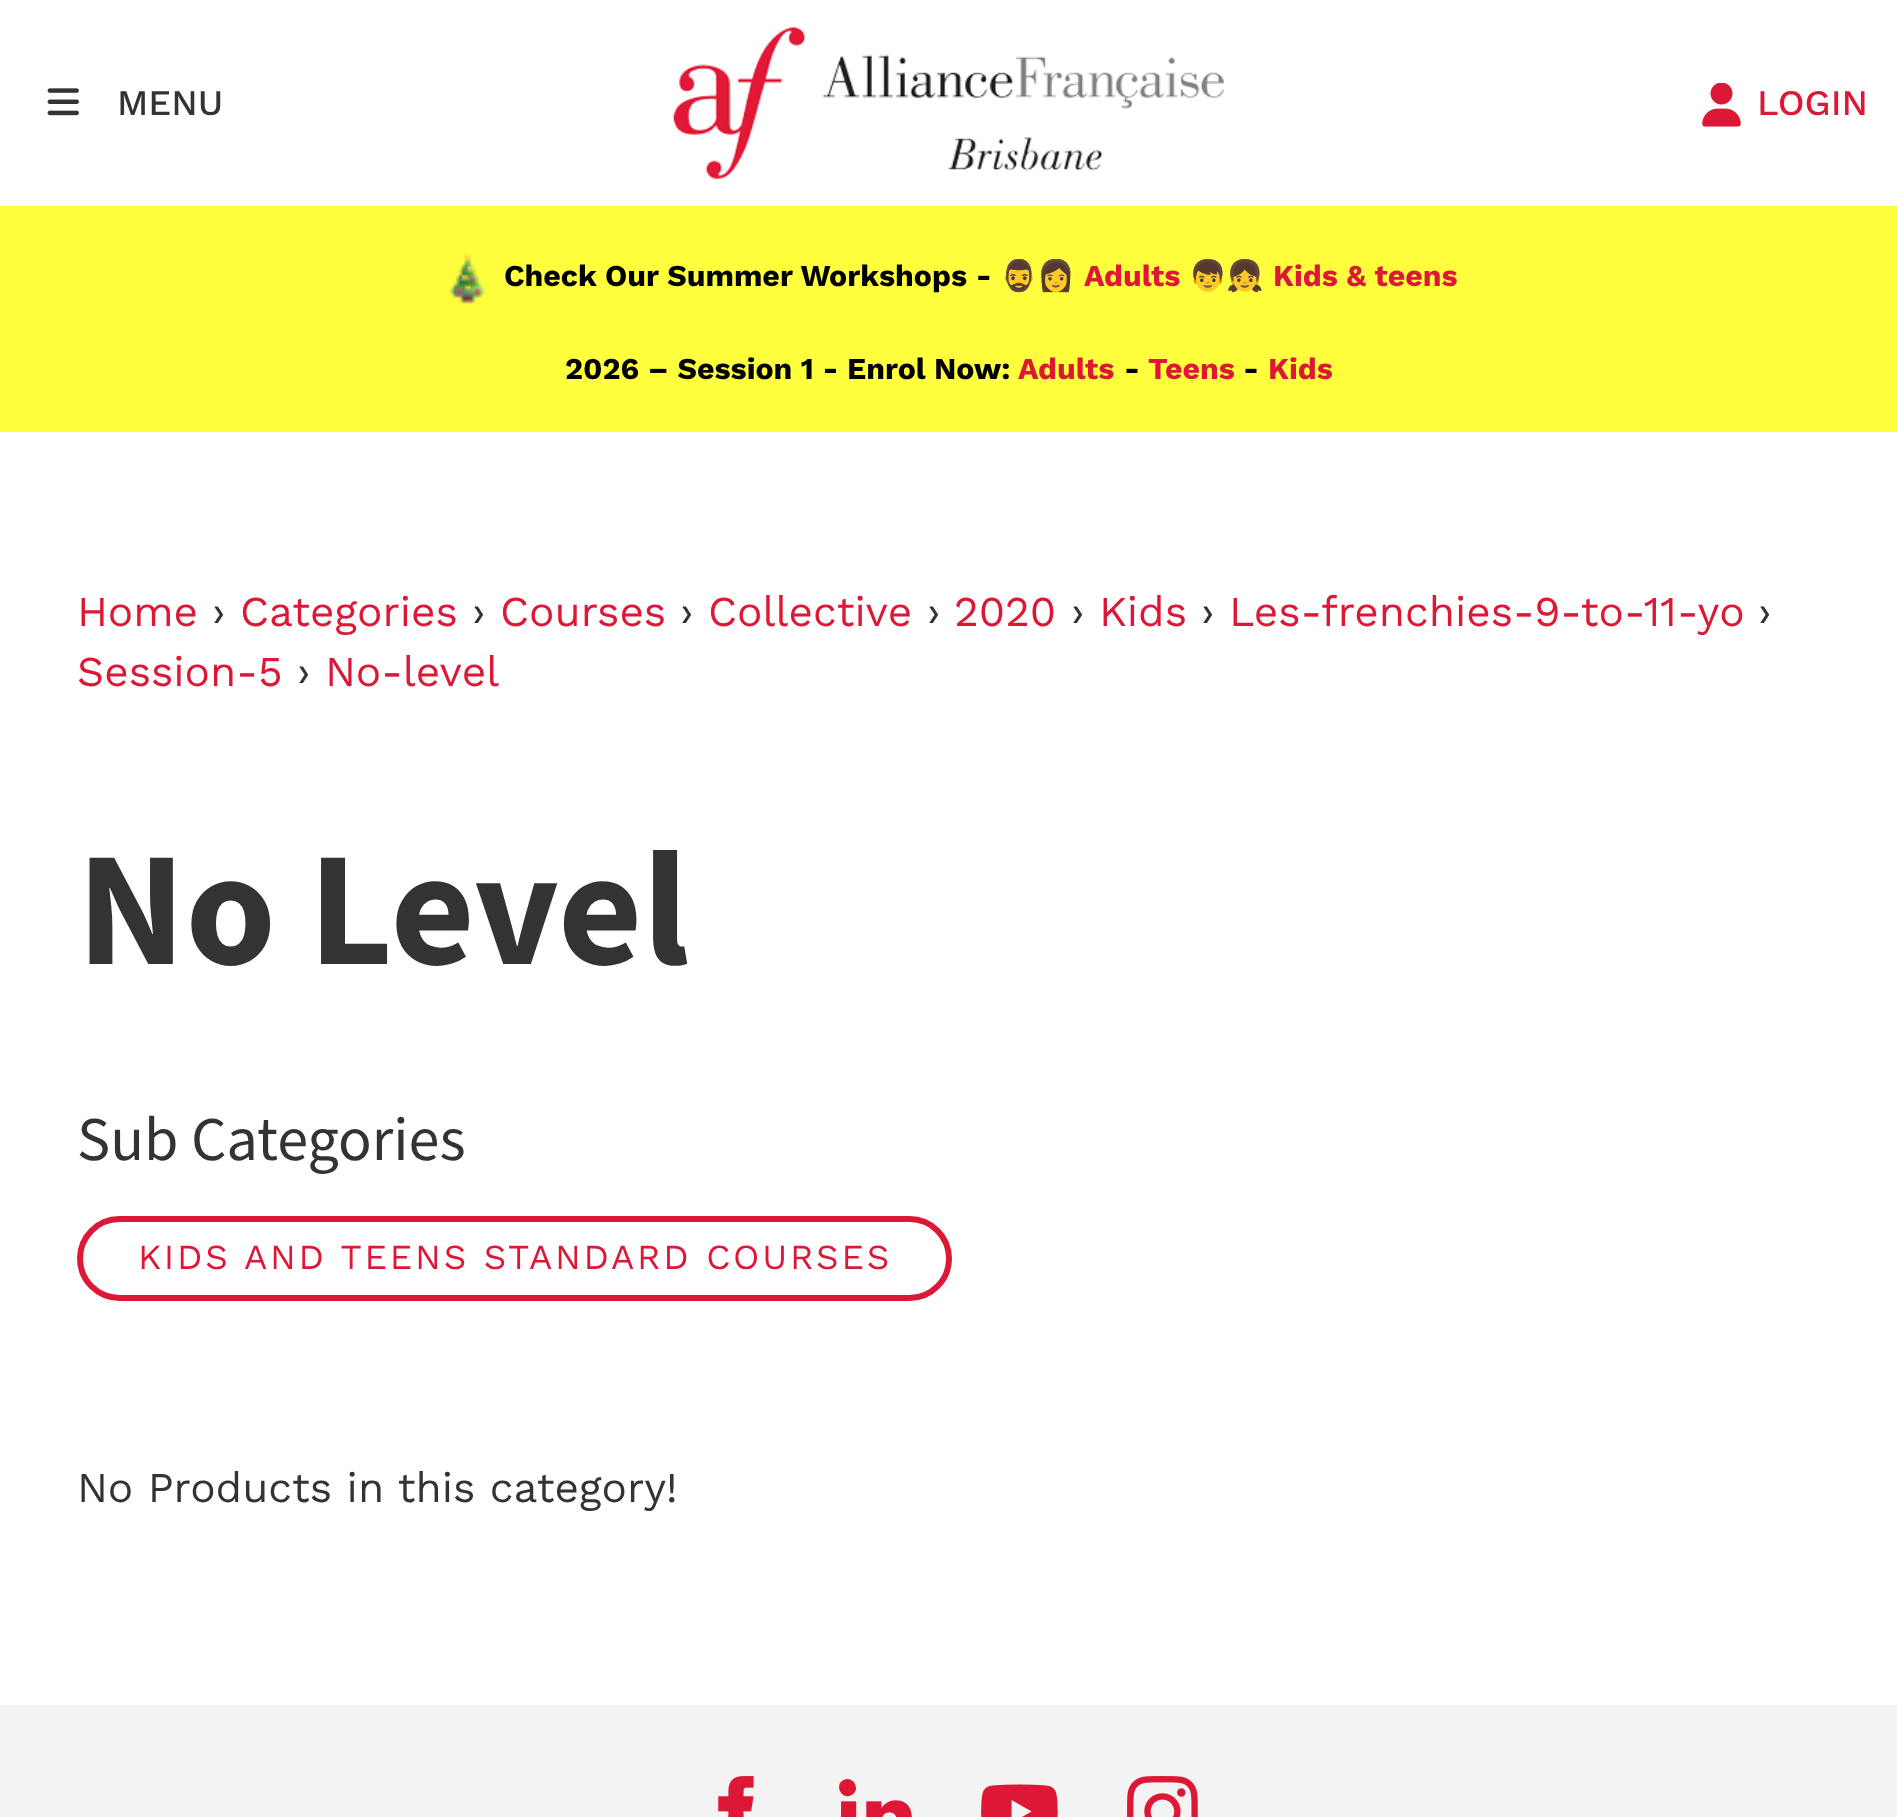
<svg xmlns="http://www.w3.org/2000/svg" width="1897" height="1817">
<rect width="100%" height="100%" fill="#fff"/>
<image x="47" y="88" width="32" height="28" href="media/1.png"/>
<text x="117" y="115" style="font-family:Work Sans;font-size:36px;font-weight:500;fill:#333">MENU</text>
<image x="673" y="27" width="551" height="152" href="media/2.png"/>
<image x="1702" y="83" width="39" height="44" href="media/3.png"/>
<text x="1757" y="115" style="font-family:Work Sans;font-size:36px;font-weight:500;fill:#dc1836">LOGIN</text>
<rect y="206" width="1897" height="226" fill="#ffff3d"/>
<image x="450" y="252" width="35" height="52" href="media/4.png"/>
<text x="504" y="286" style="font-family:Work Sans;font-size:30.25px;font-weight:bold;fill:#000">Check Our Summer Workshops -</text>
<text x="1000" y="286" style="font-family:Noto Color Emoji;font-size:30.25px;font-weight:bold;fill:#000">🧔‍♂️👩</text>
<text x="1084" y="286" style="font-family:Work Sans;font-size:30.25px;font-weight:bold;fill:#dc1836">Adults</text>
<text x="1189" y="286" style="font-family:Noto Color Emoji;font-size:30.25px;font-weight:bold;fill:#000">👦👧</text>
<text x="1273" y="286" style="font-family:Work Sans;font-size:30.25px;font-weight:bold;fill:#dc1836">Kids &amp; teens</text>
<text x="565" y="379" style="font-family:Work Sans;font-size:30.25px;font-weight:bold;fill:#000">2026 – Session 1 - Enrol Now:</text>
<text x="1018" y="379" style="font-family:Work Sans;font-size:30.25px;font-weight:bold;fill:#dc1836">Adults</text>
<text x="1124" y="379" style="font-family:Work Sans;font-size:30.25px;font-weight:bold;fill:#000">-</text>
<text x="1148" y="379" style="font-family:Work Sans;font-size:30.25px;font-weight:bold;fill:#dc1836">Teens</text>
<text x="1243" y="379" style="font-family:Work Sans;font-size:30.25px;font-weight:bold;fill:#000">-</text>
<text x="1268" y="379" style="font-family:Work Sans;font-size:30.25px;font-weight:bold;fill:#dc1836">Kids</text>
<text x="77" y="626" style="font-family:Work Sans;font-size:42.4px;fill:#dc1836">Home</text>
<text x="212" y="626" style="font-family:Work Sans;font-size:42.4px;fill:#333">›</text>
<text x="240" y="626" style="font-family:Work Sans;font-size:42.4px;fill:#dc1836">Categories</text>
<text x="472" y="626" style="font-family:Work Sans;font-size:42.4px;fill:#333">›</text>
<text x="500" y="626" style="font-family:Work Sans;font-size:42.4px;fill:#dc1836">Courses</text>
<text x="680" y="626" style="font-family:Work Sans;font-size:42.4px;fill:#333">›</text>
<text x="708" y="626" style="font-family:Work Sans;font-size:42.4px;fill:#dc1836">Collective</text>
<text x="927" y="626" style="font-family:Work Sans;font-size:42.4px;fill:#333">›</text>
<text x="954" y="626" style="font-family:Work Sans;font-size:42.4px;fill:#dc1836">2020</text>
<text x="1071" y="626" style="font-family:Work Sans;font-size:42.4px;fill:#333">›</text>
<text x="1099" y="626" style="font-family:Work Sans;font-size:42.4px;fill:#dc1836">Kids</text>
<text x="1201" y="626" style="font-family:Work Sans;font-size:42.4px;fill:#333">›</text>
<text x="1229" y="626" style="font-family:Work Sans;font-size:42.4px;fill:#dc1836">Les-frenchies-9-to-11-yo</text>
<text x="1758" y="626" style="font-family:Work Sans;font-size:42.4px;fill:#333">›</text>
<text x="77" y="686" style="font-family:Work Sans;font-size:42.4px;fill:#dc1836">Session-5</text>
<text x="297" y="686" style="font-family:Work Sans;font-size:42.4px;fill:#333">›</text>
<text x="325" y="686" style="font-family:Work Sans;font-size:42.4px;fill:#dc1836">No-level</text>
<text x="77" y="964" style="font-family:Mada;font-size:163px;font-weight:bold;fill:#333">No Level</text>
<text x="77" y="1160" style="font-family:Mada;font-size:62.25px;fill:#333">Sub Categories</text>
<rect x="80" y="1219" width="869" height="79" rx="39.5" fill="none" stroke="#dc1836" stroke-width="6"/>
<text x="138" y="1269" style="font-family:Work Sans;font-size:35.25px;letter-spacing:2.75px;fill:#dc1836">KIDS AND TEENS STANDARD COURSES</text>
<text x="77" y="1502" style="font-family:Work Sans;font-size:42.4px;fill:#333">No Products in this category!</text>
<rect y="1705" width="1897" height="112" fill="#f3f3f3"/>
<image x="718" y="1776" width="36" height="41" href="media/5.png"/>
<image x="839" y="1779" width="73" height="38" href="media/6.png"/>
<image x="981" y="1784" width="77" height="33" href="media/7.png"/>
<image x="1127" y="1776" width="71" height="41" href="media/8.png"/>
</svg>
